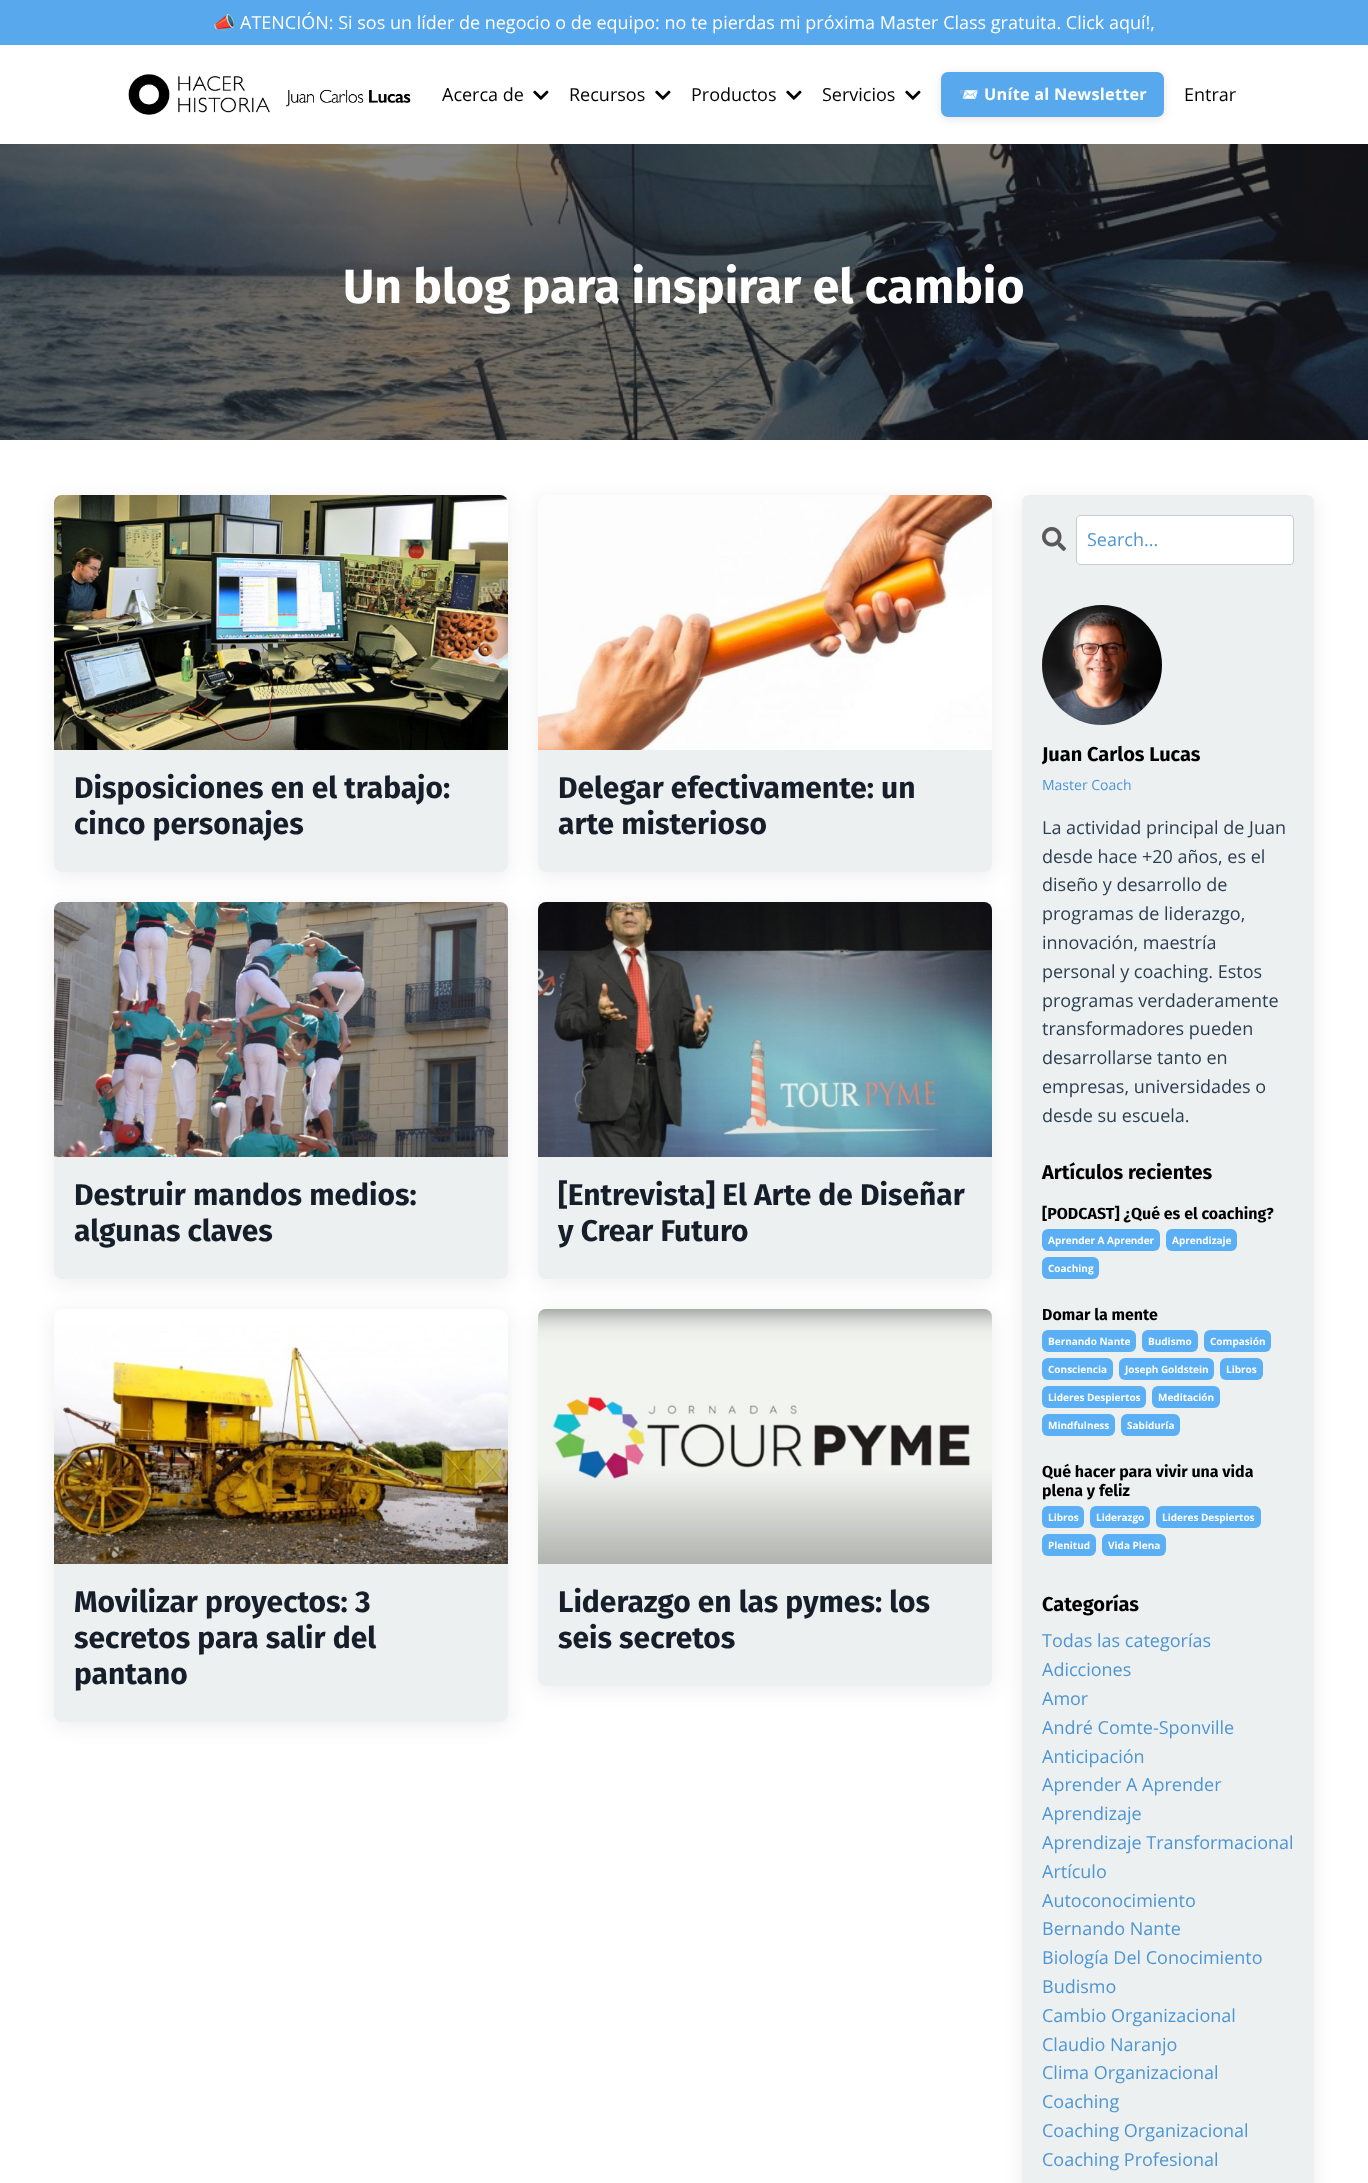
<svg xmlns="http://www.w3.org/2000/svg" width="1368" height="2183">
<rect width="100%" height="100%" fill="#fff"/>
<rect width="1368" height="45" fill="#57a8ec"/>
<text x="213" y="29" style="font-family:Noto Color Emoji;font-size:18px;fill:#fff">📣</text>
<text x="240" y="29" style="font-family:Open Sans;font-size:18px;fill:#fff">ATENCIÓN: Si sos un líder de negocio o de equipo: no te pierdas mi próxima Master Class gratuita. Click aquí!,</text>
<image x="128" y="74" width="283" height="41" href="media/1.png"/>
<text x="442" y="101" style="font-family:Open Sans;font-size:18px;fill:#000">Acerca de</text>
<image x="533" y="90" width="16" height="10" href="media/2.png"/>
<text x="569" y="101" style="font-family:Open Sans;font-size:18px;fill:#000">Recursos</text>
<image x="655" y="90" width="16" height="10" href="media/2.png"/>
<text x="691" y="101" style="font-family:Open Sans;font-size:18px;fill:#000">Productos</text>
<image x="786" y="90" width="16" height="10" href="media/2.png"/>
<text x="822" y="101" style="font-family:Open Sans;font-size:18px;fill:#000">Servicios</text>
<image x="905" y="90" width="16" height="10" href="media/2.png"/>
<rect x="941" y="74" width="223" height="45" rx="7" fill="#0000001a" filter="blur(5px)"/>
<rect x="942" y="73" width="221" height="43" rx="6" fill="#57a8ec" stroke="#57a8ec" stroke-width="2"/>
<text x="959" y="100" style="font-family:Noto Color Emoji;font-size:16.25px;font-weight:bold;letter-spacing:0.25px;fill:#fff">📨</text>
<text x="984" y="100" style="font-family:Open Sans;font-size:16.25px;font-weight:bold;letter-spacing:0.25px;fill:#fff">Uníte al Newsletter</text>
<text x="1184" y="101" style="font-family:Open Sans;font-size:18px;fill:#000">Entrar</text>
<image x="0" y="144" width="1368" height="296" href="media/3.png"/>
<text x="343" y="303" style="font-family:Fira Sans;font-size:48px;font-weight:bold;fill:#fff">Un blog para inspirar el cambio</text>
<rect x="54" y="499" width="454" height="377" rx="8" fill="#00000012" filter="blur(10px)"/>
<rect x="54" y="495" width="454" height="377" rx="8" fill="#ecf0f1"/>
<image x="54" y="495" width="454" height="255" href="media/4.png"/>
<text x="74" y="798" style="font-family:Fira Sans;font-size:30px;font-weight:bold;fill:#161e2a">Disposiciones en el trabajo:</text>
<text x="74" y="834" style="font-family:Fira Sans;font-size:30px;font-weight:bold;fill:#161e2a">cinco personajes</text>
<rect x="1022" y="499" width="292" height="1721" rx="7" fill="#00000012" filter="blur(10px)"/>
<rect x="1022" y="495" width="292" height="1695" rx="7" fill="#ecf0f1"/>
<rect x="538" y="499" width="454" height="377" rx="8" fill="#00000012" filter="blur(10px)"/>
<rect x="538" y="495" width="454" height="377" rx="8" fill="#ecf0f1"/>
<image x="538" y="495" width="454" height="255" href="media/5.png"/>
<text x="558" y="798" style="font-family:Fira Sans;font-size:30px;font-weight:bold;fill:#161e2a">Delegar efectivamente: un</text>
<text x="558" y="834" style="font-family:Fira Sans;font-size:30px;font-weight:bold;fill:#161e2a">arte misterioso</text>
<rect x="54" y="906" width="454" height="377" rx="8" fill="#00000012" filter="blur(10px)"/>
<rect x="54" y="902" width="454" height="377" rx="8" fill="#ecf0f1"/>
<image x="54" y="902" width="454" height="255" href="media/6.png"/>
<text x="74" y="1205" style="font-family:Fira Sans;font-size:30px;font-weight:bold;fill:#161e2a">Destruir mandos medios:</text>
<text x="74" y="1241" style="font-family:Fira Sans;font-size:30px;font-weight:bold;fill:#161e2a">algunas claves</text>
<rect x="538" y="906" width="454" height="377" rx="8" fill="#00000012" filter="blur(10px)"/>
<rect x="538" y="902" width="454" height="377" rx="8" fill="#ecf0f1"/>
<image x="538" y="902" width="454" height="255" href="media/7.png"/>
<text x="558" y="1205" style="font-family:Fira Sans;font-size:30px;font-weight:bold;fill:#161e2a">[Entrevista] El Arte de Diseñar</text>
<text x="558" y="1241" style="font-family:Fira Sans;font-size:30px;font-weight:bold;fill:#161e2a">y Crear Futuro</text>
<rect x="54" y="1313" width="454" height="413" rx="8" fill="#00000012" filter="blur(10px)"/>
<rect x="54" y="1309" width="454" height="413" rx="8" fill="#ecf0f1"/>
<image x="54" y="1309" width="454" height="255" href="media/8.png"/>
<text x="74" y="1612" style="font-family:Fira Sans;font-size:30px;font-weight:bold;fill:#161e2a">Movilizar proyectos: 3</text>
<text x="74" y="1648" style="font-family:Fira Sans;font-size:30px;font-weight:bold;fill:#161e2a">secretos para salir del</text>
<text x="74" y="1684" style="font-family:Fira Sans;font-size:30px;font-weight:bold;fill:#161e2a">pantano</text>
<rect x="538" y="1313" width="454" height="377" rx="8" fill="#00000012" filter="blur(10px)"/>
<rect x="538" y="1309" width="454" height="377" rx="8" fill="#ecf0f1"/>
<image x="538" y="1309" width="454" height="255" href="media/9.png"/>
<text x="558" y="1612" style="font-family:Fira Sans;font-size:30px;font-weight:bold;fill:#161e2a">Liderazgo en las pymes: los</text>
<text x="558" y="1648" style="font-family:Fira Sans;font-size:30px;font-weight:bold;fill:#161e2a">seis secretos</text>
<image x="1042" y="527" width="24" height="24" href="media/10.png"/>
<rect x="1076.5" y="515.5" width="217" height="49" rx="3.5" fill="#fff" stroke="#c9cccd"/>
<text x="1087" y="546" style="font-family:Open Sans;font-size:18px;fill:#4e96d3">Search...</text>
<image x="1042" y="605" width="120" height="120" href="media/11.png"/>
<text x="1042" y="761" style="font-family:Fira Sans;font-size:20px;font-weight:bold;fill:#000">Juan Carlos Lucas</text>
<text x="1042" y="790" style="font-family:Open Sans;font-size:14px;fill:#4e96d3">Master Coach</text>
<text x="1042" y="834" style="font-family:Open Sans;font-size:18px;fill:#2c3e50">La actividad principal de Juan</text>
<text x="1042" y="863" style="font-family:Open Sans;font-size:18px;fill:#2c3e50">desde hace +20 años, es el</text>
<text x="1042" y="891" style="font-family:Open Sans;font-size:18px;fill:#2c3e50">diseño y desarrollo de</text>
<text x="1042" y="920" style="font-family:Open Sans;font-size:18px;fill:#2c3e50">programas de liderazgo,</text>
<text x="1042" y="949" style="font-family:Open Sans;font-size:18px;fill:#2c3e50">innovación, maestría</text>
<text x="1042" y="978" style="font-family:Open Sans;font-size:18px;fill:#2c3e50">personal y coaching. Estos</text>
<text x="1042" y="1007" style="font-family:Open Sans;font-size:18px;fill:#2c3e50">programas verdaderamente</text>
<text x="1042" y="1035" style="font-family:Open Sans;font-size:18px;fill:#2c3e50">transformadores pueden</text>
<text x="1042" y="1064" style="font-family:Open Sans;font-size:18px;fill:#2c3e50">desarrollarse tanto en</text>
<text x="1042" y="1093" style="font-family:Open Sans;font-size:18px;fill:#2c3e50">empresas, universidades o</text>
<text x="1042" y="1122" style="font-family:Open Sans;font-size:18px;fill:#2c3e50">desde su escuela.</text>
<text x="1042" y="1179" style="font-family:Fira Sans;font-size:20px;font-weight:bold;fill:#000">Artículos recientes</text>
<text x="1042" y="1219" style="font-family:Fira Sans;font-size:16px;font-weight:bold;fill:#000">[PODCAST] ¿Qué es el coaching?</text>
<rect x="1042" y="1229" width="118" height="22" rx="6" fill="#5baff5"/>
<text x="1048" y="1244" style="font-family:Open Sans;font-size:10px;font-weight:bold;fill:#fff">Aprender A Aprender</text>
<rect x="1166" y="1229" width="71" height="22" rx="6" fill="#5baff5"/>
<text x="1172" y="1244" style="font-family:Open Sans;font-size:10px;font-weight:bold;fill:#fff">Aprendizaje</text>
<rect x="1042" y="1257" width="57" height="22" rx="6" fill="#5baff5"/>
<text x="1048" y="1272" style="font-family:Open Sans;font-size:10px;font-weight:bold;fill:#fff">Coaching</text>
<text x="1042" y="1320" style="font-family:Fira Sans;font-size:16px;font-weight:bold;fill:#000">Domar la mente</text>
<rect x="1042" y="1330" width="94" height="22" rx="6" fill="#5baff5"/>
<text x="1048" y="1345" style="font-family:Open Sans;font-size:10px;font-weight:bold;fill:#fff">Bernando Nante</text>
<rect x="1142" y="1330" width="56" height="22" rx="6" fill="#5baff5"/>
<text x="1148" y="1345" style="font-family:Open Sans;font-size:10px;font-weight:bold;fill:#fff">Budismo</text>
<rect x="1204" y="1330" width="67" height="22" rx="6" fill="#5baff5"/>
<text x="1210" y="1345" style="font-family:Open Sans;font-size:10px;font-weight:bold;fill:#fff">Compasión</text>
<rect x="1042" y="1358" width="71" height="22" rx="6" fill="#5baff5"/>
<text x="1048" y="1373" style="font-family:Open Sans;font-size:10px;font-weight:bold;fill:#fff">Consciencia</text>
<rect x="1119" y="1358" width="95" height="22" rx="6" fill="#5baff5"/>
<text x="1125" y="1373" style="font-family:Open Sans;font-size:10px;font-weight:bold;fill:#fff">Joseph Goldstein</text>
<rect x="1220" y="1358" width="43" height="22" rx="6" fill="#5baff5"/>
<text x="1226" y="1373" style="font-family:Open Sans;font-size:10px;font-weight:bold;fill:#fff">Libros</text>
<rect x="1042" y="1386" width="104" height="22" rx="6" fill="#5baff5"/>
<text x="1048" y="1401" style="font-family:Open Sans;font-size:10px;font-weight:bold;fill:#fff">Lideres Despiertos</text>
<rect x="1152" y="1386" width="68" height="22" rx="6" fill="#5baff5"/>
<text x="1158" y="1401" style="font-family:Open Sans;font-size:10px;font-weight:bold;fill:#fff">Meditación</text>
<rect x="1042" y="1414" width="73" height="22" rx="6" fill="#5baff5"/>
<text x="1048" y="1429" style="font-family:Open Sans;font-size:10px;font-weight:bold;fill:#fff">Mindfulness</text>
<rect x="1121" y="1414" width="59" height="22" rx="6" fill="#5baff5"/>
<text x="1127" y="1429" style="font-family:Open Sans;font-size:10px;font-weight:bold;fill:#fff">Sabiduría</text>
<text x="1042" y="1477" style="font-family:Fira Sans;font-size:16px;font-weight:bold;fill:#000">Qué hacer para vivir una vida</text>
<text x="1042" y="1496" style="font-family:Fira Sans;font-size:16px;font-weight:bold;fill:#000">plena y feliz</text>
<rect x="1042" y="1506" width="42" height="22" rx="6" fill="#5baff5"/>
<text x="1048" y="1521" style="font-family:Open Sans;font-size:10px;font-weight:bold;fill:#fff">Libros</text>
<rect x="1090" y="1506" width="60" height="22" rx="6" fill="#5baff5"/>
<text x="1096" y="1521" style="font-family:Open Sans;font-size:10px;font-weight:bold;fill:#fff">Liderazgo</text>
<rect x="1156" y="1506" width="105" height="22" rx="6" fill="#5baff5"/>
<text x="1162" y="1521" style="font-family:Open Sans;font-size:10px;font-weight:bold;fill:#fff">Lideres Despiertos</text>
<rect x="1042" y="1534" width="54" height="22" rx="6" fill="#5baff5"/>
<text x="1048" y="1549" style="font-family:Open Sans;font-size:10px;font-weight:bold;fill:#fff">Plenitud</text>
<rect x="1102" y="1534" width="64" height="22" rx="6" fill="#5baff5"/>
<text x="1108" y="1549" style="font-family:Open Sans;font-size:10px;font-weight:bold;fill:#fff">Vida Plena</text>
<text x="1042" y="1611" style="font-family:Fira Sans;font-size:20px;font-weight:bold;fill:#000">Categorías</text>
<text x="1042" y="1647" style="font-family:Open Sans;font-size:18px;fill:#4e96d3">Todas las categorías</text>
<text x="1042" y="1676" style="font-family:Open Sans;font-size:18px;fill:#4e96d3">Adicciones</text>
<text x="1042" y="1705" style="font-family:Open Sans;font-size:18px;fill:#4e96d3">Amor</text>
<text x="1042" y="1734" style="font-family:Open Sans;font-size:18px;fill:#4e96d3">André Comte-Sponville</text>
<text x="1042" y="1763" style="font-family:Open Sans;font-size:18px;fill:#4e96d3">Anticipación</text>
<text x="1042" y="1791" style="font-family:Open Sans;font-size:18px;fill:#4e96d3">Aprender A Aprender</text>
<text x="1042" y="1820" style="font-family:Open Sans;font-size:18px;fill:#4e96d3">Aprendizaje</text>
<text x="1042" y="1849" style="font-family:Open Sans;font-size:18px;fill:#4e96d3">Aprendizaje Transformacional</text>
<text x="1042" y="1878" style="font-family:Open Sans;font-size:18px;fill:#4e96d3">Artículo</text>
<text x="1042" y="1907" style="font-family:Open Sans;font-size:18px;fill:#4e96d3">Autoconocimiento</text>
<text x="1042" y="1935" style="font-family:Open Sans;font-size:18px;fill:#4e96d3">Bernando Nante</text>
<text x="1042" y="1964" style="font-family:Open Sans;font-size:18px;fill:#4e96d3">Biología Del Conocimiento</text>
<text x="1042" y="1993" style="font-family:Open Sans;font-size:18px;fill:#4e96d3">Budismo</text>
<text x="1042" y="2022" style="font-family:Open Sans;font-size:18px;fill:#4e96d3">Cambio Organizacional</text>
<text x="1042" y="2051" style="font-family:Open Sans;font-size:18px;fill:#4e96d3">Claudio Naranjo</text>
<text x="1042" y="2079" style="font-family:Open Sans;font-size:18px;fill:#4e96d3">Clima Organizacional</text>
<text x="1042" y="2108" style="font-family:Open Sans;font-size:18px;fill:#4e96d3">Coaching</text>
<text x="1042" y="2137" style="font-family:Open Sans;font-size:18px;fill:#4e96d3">Coaching Organizacional</text>
<text x="1042" y="2166" style="font-family:Open Sans;font-size:18px;fill:#4e96d3">Coaching Profesional</text>
</svg>
